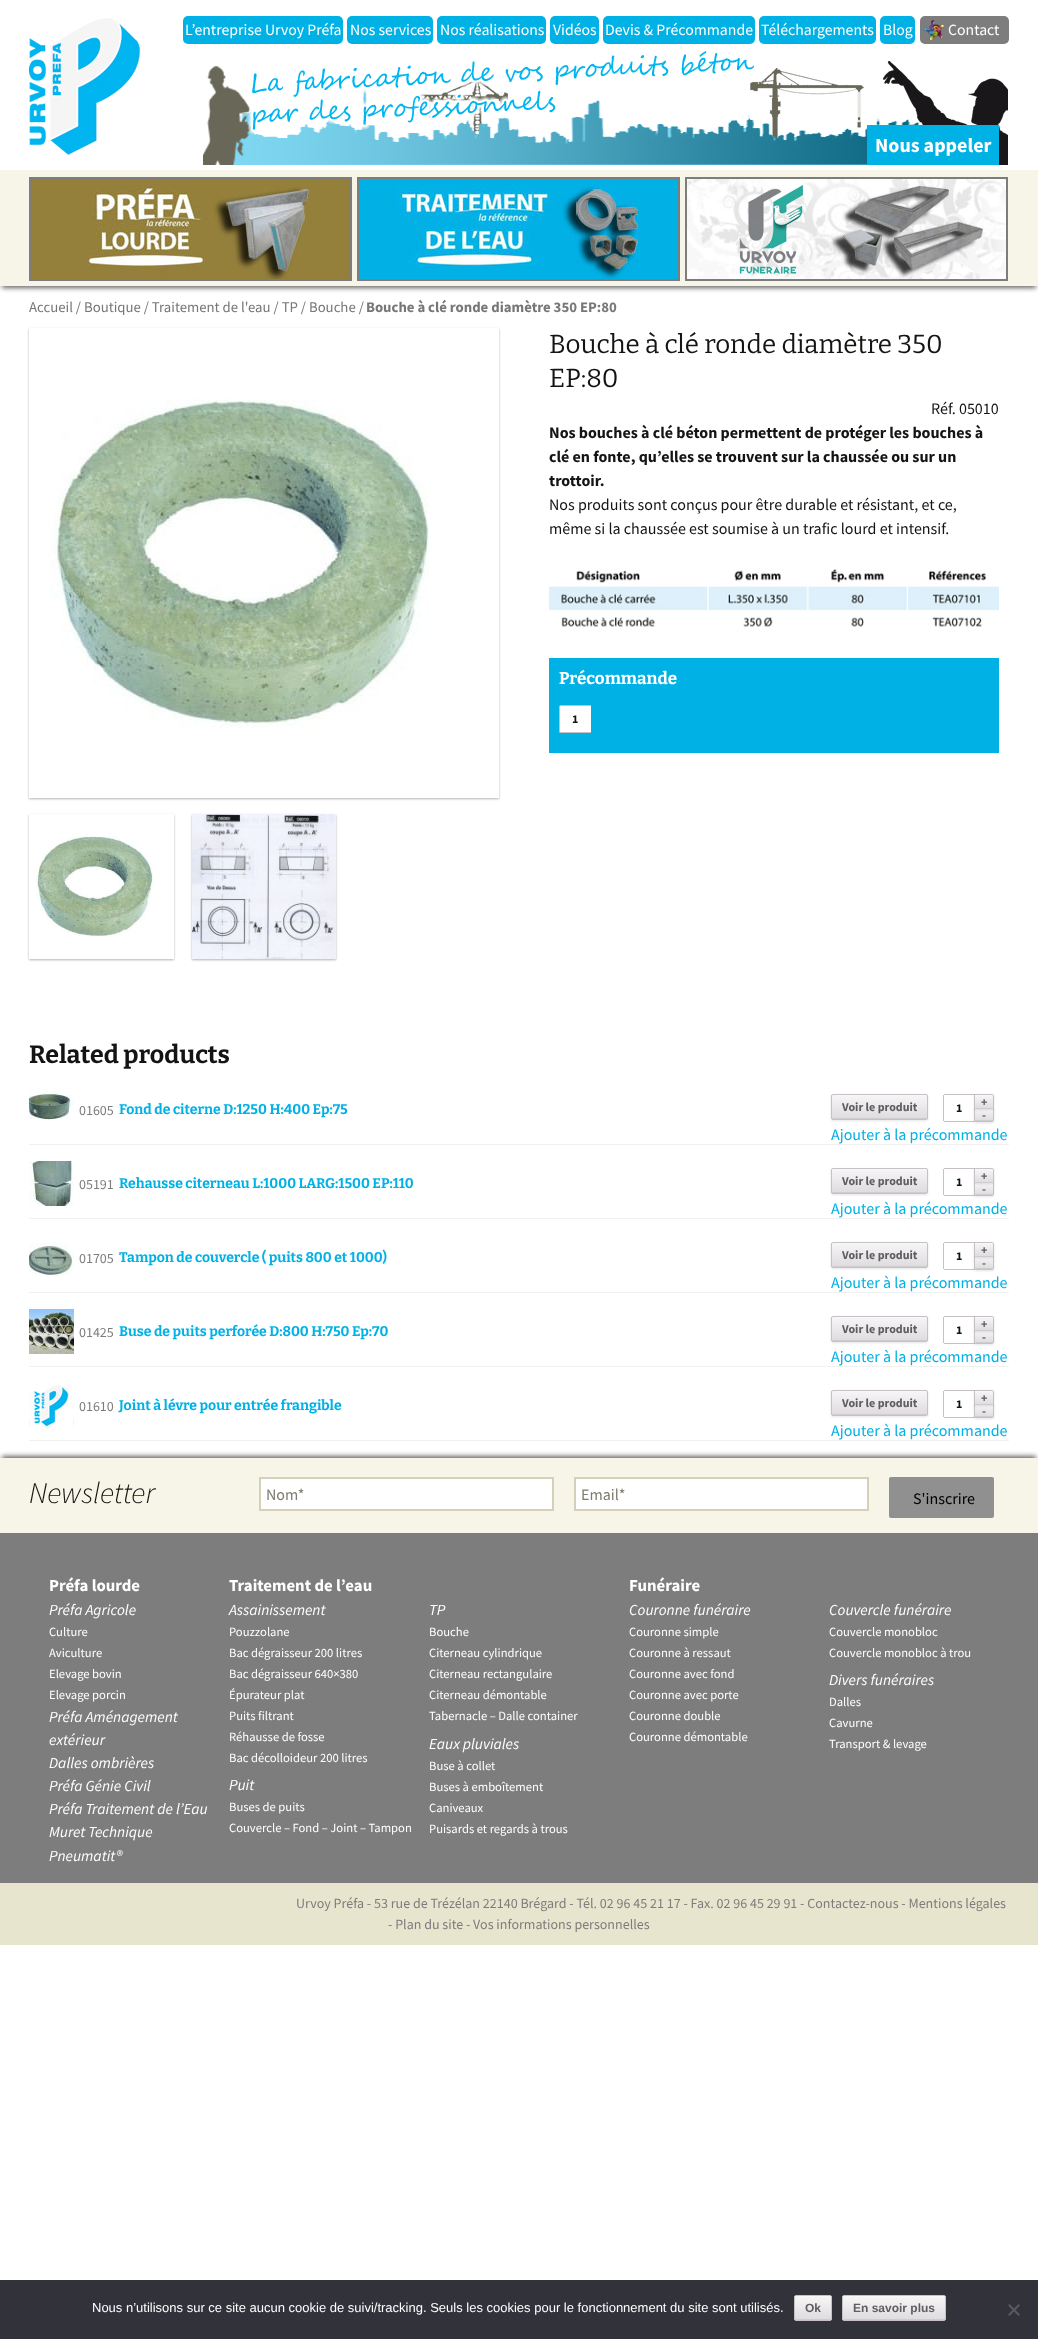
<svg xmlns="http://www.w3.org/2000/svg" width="1038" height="2339">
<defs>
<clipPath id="clip1"><path d="M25 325h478v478h-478zm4 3h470v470h-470z" clip-rule="evenodd"/></clipPath>
<clipPath id="clip2"><path d="M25 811h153v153h-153zm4 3h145v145h-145z" clip-rule="evenodd"/></clipPath>
<clipPath id="clip3"><rect x="831" y="1094" width="97" height="26" rx="2"/></clipPath>
<linearGradient id="g1" gradientUnits="userSpaceOnUse" x1="880" y1="1095" x2="880" y2="1119"><stop offset="0" stop-color="#f7f6f7"/><stop offset="1" stop-color="#dfdbdf"/></linearGradient>
<linearGradient id="g2" gradientUnits="userSpaceOnUse" x1="984" y1="1108" x2="984" y2="1121"><stop offset="0" stop-color="#f7f6f7"/><stop offset="1" stop-color="#dfdbdf"/></linearGradient>
<linearGradient id="g3" gradientUnits="userSpaceOnUse" x1="984" y1="1095" x2="984" y2="1109"><stop offset="0" stop-color="#f7f6f7"/><stop offset="1" stop-color="#dfdbdf"/></linearGradient>
<clipPath id="clip4"><rect x="831" y="1168" width="97" height="26" rx="2"/></clipPath>
<linearGradient id="g4" gradientUnits="userSpaceOnUse" x1="880" y1="1169" x2="880" y2="1193"><stop offset="0" stop-color="#f7f6f7"/><stop offset="1" stop-color="#dfdbdf"/></linearGradient>
<linearGradient id="g5" gradientUnits="userSpaceOnUse" x1="984" y1="1182" x2="984" y2="1195"><stop offset="0" stop-color="#f7f6f7"/><stop offset="1" stop-color="#dfdbdf"/></linearGradient>
<linearGradient id="g6" gradientUnits="userSpaceOnUse" x1="984" y1="1169" x2="984" y2="1183"><stop offset="0" stop-color="#f7f6f7"/><stop offset="1" stop-color="#dfdbdf"/></linearGradient>
<clipPath id="clip5"><rect x="831" y="1242" width="97" height="26" rx="2"/></clipPath>
<linearGradient id="g7" gradientUnits="userSpaceOnUse" x1="880" y1="1243" x2="880" y2="1267"><stop offset="0" stop-color="#f7f6f7"/><stop offset="1" stop-color="#dfdbdf"/></linearGradient>
<linearGradient id="g8" gradientUnits="userSpaceOnUse" x1="984" y1="1256" x2="984" y2="1269"><stop offset="0" stop-color="#f7f6f7"/><stop offset="1" stop-color="#dfdbdf"/></linearGradient>
<linearGradient id="g9" gradientUnits="userSpaceOnUse" x1="984" y1="1243" x2="984" y2="1257"><stop offset="0" stop-color="#f7f6f7"/><stop offset="1" stop-color="#dfdbdf"/></linearGradient>
<clipPath id="clip6"><rect x="831" y="1316" width="97" height="26" rx="2"/></clipPath>
<linearGradient id="g10" gradientUnits="userSpaceOnUse" x1="880" y1="1317" x2="880" y2="1341"><stop offset="0" stop-color="#f7f6f7"/><stop offset="1" stop-color="#dfdbdf"/></linearGradient>
<linearGradient id="g11" gradientUnits="userSpaceOnUse" x1="984" y1="1330" x2="984" y2="1343"><stop offset="0" stop-color="#f7f6f7"/><stop offset="1" stop-color="#dfdbdf"/></linearGradient>
<linearGradient id="g12" gradientUnits="userSpaceOnUse" x1="984" y1="1317" x2="984" y2="1331"><stop offset="0" stop-color="#f7f6f7"/><stop offset="1" stop-color="#dfdbdf"/></linearGradient>
<clipPath id="clip7"><rect x="831" y="1390" width="97" height="26" rx="2"/></clipPath>
<linearGradient id="g13" gradientUnits="userSpaceOnUse" x1="880" y1="1391" x2="880" y2="1415"><stop offset="0" stop-color="#f7f6f7"/><stop offset="1" stop-color="#dfdbdf"/></linearGradient>
<linearGradient id="g14" gradientUnits="userSpaceOnUse" x1="984" y1="1404" x2="984" y2="1417"><stop offset="0" stop-color="#f7f6f7"/><stop offset="1" stop-color="#dfdbdf"/></linearGradient>
<linearGradient id="g15" gradientUnits="userSpaceOnUse" x1="984" y1="1391" x2="984" y2="1405"><stop offset="0" stop-color="#f7f6f7"/><stop offset="1" stop-color="#dfdbdf"/></linearGradient>
<clipPath id="clip8"><rect x="794" y="2295" width="38" height="26" rx="2"/></clipPath>
<linearGradient id="g16" gradientUnits="userSpaceOnUse" x1="813" y1="2296" x2="813" y2="2320"><stop offset="0" stop-color="#f7f6f7"/><stop offset="1" stop-color="#dfdbdf"/></linearGradient>
<clipPath id="clip9"><rect x="842" y="2295" width="104" height="26" rx="2"/></clipPath>
<linearGradient id="g17" gradientUnits="userSpaceOnUse" x1="894" y1="2296" x2="894" y2="2320"><stop offset="0" stop-color="#f7f6f7"/><stop offset="1" stop-color="#dfdbdf"/></linearGradient>
</defs>
<rect width="100%" height="100%" fill="#fff"/>
<image x="29" y="18" width="111" height="137" href="media/1.png"/>
<rect x="183" y="16" width="160" height="28" rx="5" fill="#00b1e6"/>
<text x="185" y="35" style="font-family:Source Sans Pro;font-size:15.75px;fill:#fff">L’entreprise Urvoy Préfa</text>
<rect x="347" y="16" width="86" height="28" rx="5" fill="#00b1e6"/>
<text x="350" y="35" style="font-family:Source Sans Pro;font-size:15.75px;fill:#fff">Nos services</text>
<rect x="437" y="16" width="109" height="28" rx="5" fill="#00b1e6"/>
<text x="440" y="35" style="font-family:Source Sans Pro;font-size:15.75px;fill:#fff">Nos réalisations</text>
<rect x="550" y="16" width="49" height="28" rx="5" fill="#00b1e6"/>
<text x="553" y="35" style="font-family:Source Sans Pro;font-size:15.75px;fill:#fff">Vidéos</text>
<rect x="603" y="16" width="152" height="28" rx="5" fill="#00b1e6"/>
<text x="605" y="35" style="font-family:Source Sans Pro;font-size:15.75px;fill:#fff">Devis &amp; Précommande</text>
<rect x="759" y="16" width="117" height="28" rx="5" fill="#00b1e6"/>
<text x="761" y="35" style="font-family:Source Sans Pro;font-size:15.75px;fill:#fff">Téléchargements</text>
<rect x="880" y="16" width="35" height="28" rx="5" fill="#00b1e6"/>
<text x="883" y="35" style="font-family:Source Sans Pro;font-size:15.75px;fill:#fff">Blog</text>
<rect x="920" y="16" width="89" height="28" rx="5" fill="#7d7d7d"/>
<image x="924" y="20" width="20" height="20" href="media/2.png"/>
<text x="948" y="35" style="font-family:Source Sans Pro;font-size:15.75px;fill:#fff">Contact</text>
<image x="203" y="61" width="805" height="104" href="media/3.png"/>
<image x="247" y="51" width="507" height="84" href="media/4.png"/>
<rect x="867" y="125" width="132" height="40" fill="#00b1e6"/>
<text x="875" y="152" style="font-family:Source Sans Pro;font-size:20px;font-weight:bold;fill:#fff">Nous appeler</text>
<rect x="2" y="176" width="1034" height="112" fill="#00000099" filter="blur(2.5px)"/>
<rect y="170" width="1038" height="116" fill="#f7f5e7"/>
<rect x="30" y="178" width="321" height="102" fill="none" stroke="#7d7d7d" stroke-width="2"/>
<image x="31" y="179" width="319" height="100" href="media/5.png"/>
<rect x="358" y="178" width="321" height="102" fill="none" stroke="#7d7d7d" stroke-width="2"/>
<image x="359" y="179" width="319" height="100" href="media/6.png"/>
<rect x="686" y="178" width="321" height="102" fill="none" stroke="#7d7d7d" stroke-width="2"/>
<image x="687" y="179" width="319" height="100" href="media/7.png"/>
<text x="29" y="312" style="font-family:Source Sans Pro;font-size:14.75px;fill:#777">Accueil / Boutique / Traitement de l'eau / TP / Bouche /</text>
<text x="366" y="312" style="font-family:Source Sans Pro;font-size:14.75px;font-weight:bold;fill:#777">Bouche à clé ronde diamètre 350 EP:80</text>
<g clip-path="url(#clip1)">
<rect x="29" y="329" width="470" height="470" fill="#0000004d" filter="blur(1px)"/>
</g>
<image x="46" y="399" width="383" height="329" href="media/8.png"/>
<g clip-path="url(#clip2)">
<rect x="29" y="815" width="145" height="145" fill="#0000004d" filter="blur(1px)"/>
</g>
<image x="36" y="836" width="117" height="101" href="media/9.png"/>
<rect x="192" y="815" width="144" height="145" fill="#0000004d" filter="blur(1px)"/>
<image x="192" y="814" width="144" height="145" href="media/10.png"/>
<text x="549" y="353" style="font-family:Bitter;font-size:26px;fill:#141412">Bouche à clé ronde diamètre 350</text>
<text x="549" y="387" style="font-family:Bitter;font-size:26px;fill:#141412">EP:80</text>
<text x="931" y="414" style="font-family:Source Sans Pro;font-size:16px;fill:#141412">Réf. 05010</text>
<text x="549" y="438" style="font-family:Source Sans Pro;font-size:16px;font-weight:bold;fill:#141412">Nos bouches à clé béton permettent de protéger les bouches à</text>
<text x="549" y="462" style="font-family:Source Sans Pro;font-size:16px;font-weight:bold;fill:#141412">clé en fonte, qu’elles se trouvent sur la chaussée ou sur un</text>
<text x="549" y="486" style="font-family:Source Sans Pro;font-size:16px;font-weight:bold;fill:#141412">trottoir.</text>
<text x="549" y="510" style="font-family:Source Sans Pro;font-size:16px;fill:#141412">Nos produits sont conçus pour être durable et résistant, et ce,</text>
<text x="549" y="534" style="font-family:Source Sans Pro;font-size:16px;fill:#141412">même si la chaussée est soumise à un trafic lourd et intensif.</text>
<image x="549" y="569" width="450" height="58" href="media/11.png"/>
<rect x="549" y="658" width="450" height="95" fill="#00b1e6"/>
<text x="559" y="684" style="font-family:Bitter;font-size:17px;font-weight:bold;fill:#fff">Précommande</text>
<path d="M561 705h30v28h-30c-1 0-2-1-2-2v-24c0-1 1-2 2-2z" fill="#fff"/>
<rect x="560" y="705" width="31" height="1" fill="#c7c0c7"/>
<rect x="560" y="732" width="31" height="1" fill="#c7c0c7"/>
<rect x="559" y="706" width="1" height="26" fill="#c7c0c7"/>
<text x="572" y="723" style="font-family:Source Sans Pro;font-size:12px;font-weight:bold;fill:#141412">1</text>
<text x="29" y="1063" style="font-family:Bitter;font-size:25px;font-weight:bold;fill:#141412">Related products</text>
<rect x="29" y="1144" width="980" height="1" fill="#f1f1f1"/>
<image x="29" y="1088" width="45" height="32" href="media/12.png"/>
<text x="79" y="1115" style="font-family:Source Sans Pro;font-size:14px;fill:#7d7d7d">01605</text>
<text x="119" y="1114" style="font-family:Bitter;font-size:14px;font-weight:bold;fill:#00b1e6">Fond de citerne D:1250 H:400 Ep:75</text>
<rect x="831" y="1095" width="97" height="26" rx="2" fill="#0000001a" filter="blur(1px)"/>
<g clip-path="url(#clip3)">
<rect x="831" y="1095" width="97" height="24" fill="url(#g1)"/>
</g>
<path d="M833 1096h93c1 0 1 0 1 1c0-1 0-2-1-2h-93l-1 2c0-1 0-1 1-1z" fill="#f9f8f9"/>
<path d="M832 1117c0 1 0 2 1 2h93l1-2c0 1 0 1-1 1h-93c-1 0-1 0-1-1z" fill="#cfcccf"/>
<rect x="831.5" y="1094.5" width="96" height="25" rx="1.5" fill="none" stroke="#c7c0c7"/>
<text x="842" y="1111" style="font-family:Source Sans Pro;font-size:12px;font-weight:bold;fill:#5e5e5e">Voir le produit</text>
<rect x="944" y="1094" width="31" height="1" fill="#c7c0c7"/>
<rect x="944" y="1121" width="31" height="1" fill="#c7c0c7"/>
<rect x="974" y="1108" width="20" height="15" rx="2" fill="#0000001a" filter="blur(1px)"/>
<rect x="974" y="1109" width="20" height="12" fill="url(#g2)"/>
<path d="M975 1119c0 2.5 1 2 3.5 2h11c2.5 0 3.5 .5 3.5-2c0 1 0 1-1 1h-16c-1 0-1 0-1-1z" fill="#cfcccf"/>
<path d="M974.5 1107.5h19v12.5c0 1-.5 1.5-1.5 1.5h-16c-1 0-1.5-.5-1.5-1.5z" fill="none" stroke="#c7c0c7"/>
<rect x="974" y="1095" width="20" height="15" rx="2" fill="#0000001a" filter="blur(1px)"/>
<rect x="975" y="1095" width="18" height="13" fill="url(#g3)"/>
<path d="M976 1096h17v1c0-2.5-1-2-3.5-2h-11c-3.5 0-3.5-.5-3.5 3c0-1 .5-2 1-2z" fill="#f9f8f9"/>
<rect x="975" y="1108" width="18" height="1" fill="#cfcccf"/>
<rect x="975" y="1094" width="18" height="1" fill="#c7c0c7"/>
<rect x="993" y="1095" width="1" height="14" fill="#c7c0c7"/>
<rect x="974" y="1095" width="1" height="14" fill="#c7c0c7"/>
<text x="981" y="1106" style="font-family:Source Sans Pro;font-size:12px;font-weight:bold;fill:#5e5e5e">+</text>
<rect x="943" y="1095" width="1" height="26" fill="#c7c0c7"/>
<text x="956" y="1112" style="font-family:Source Sans Pro;font-size:12px;font-weight:bold;fill:#141412">1</text>
<text x="982" y="1119" style="font-family:Source Sans Pro;font-size:12px;font-weight:bold;fill:#5e5e5e">-</text>
<text x="831" y="1140" style="font-family:Source Sans Pro;font-size:16px;fill:#00b1e6">Ajouter à la précommande</text>
<rect x="29" y="1218" width="980" height="1" fill="#f1f1f1"/>
<image x="29" y="1161" width="45" height="45" href="media/13.png"/>
<text x="79" y="1189" style="font-family:Source Sans Pro;font-size:14px;fill:#7d7d7d">05191</text>
<text x="119" y="1188" style="font-family:Bitter;font-size:14px;font-weight:bold;fill:#00b1e6">Rehausse citerneau L:1000 LARG:1500 EP:110</text>
<rect x="831" y="1169" width="97" height="26" rx="2" fill="#0000001a" filter="blur(1px)"/>
<g clip-path="url(#clip4)">
<rect x="831" y="1169" width="97" height="24" fill="url(#g4)"/>
</g>
<path d="M833 1170h93c1 0 1 0 1 1c0-1 0-2-1-2h-93l-1 2c0-1 0-1 1-1z" fill="#f9f8f9"/>
<path d="M832 1191c0 1 0 2 1 2h93l1-2c0 1 0 1-1 1h-93c-1 0-1 0-1-1z" fill="#cfcccf"/>
<rect x="831.5" y="1168.5" width="96" height="25" rx="1.5" fill="none" stroke="#c7c0c7"/>
<text x="842" y="1185" style="font-family:Source Sans Pro;font-size:12px;font-weight:bold;fill:#5e5e5e">Voir le produit</text>
<rect x="944" y="1168" width="31" height="1" fill="#c7c0c7"/>
<rect x="944" y="1195" width="31" height="1" fill="#c7c0c7"/>
<rect x="974" y="1182" width="20" height="15" rx="2" fill="#0000001a" filter="blur(1px)"/>
<rect x="974" y="1183" width="20" height="12" fill="url(#g5)"/>
<path d="M975 1193c0 2.5 1 2 3.5 2h11c2.5 0 3.5 .5 3.5-2c0 1 0 1-1 1h-16c-1 0-1 0-1-1z" fill="#cfcccf"/>
<path d="M974.5 1181.5h19v12.5c0 1-.5 1.5-1.5 1.5h-16c-1 0-1.5-.5-1.5-1.5z" fill="none" stroke="#c7c0c7"/>
<rect x="974" y="1169" width="20" height="15" rx="2" fill="#0000001a" filter="blur(1px)"/>
<rect x="975" y="1169" width="18" height="13" fill="url(#g6)"/>
<path d="M976 1170h17v1c0-2.5-1-2-3.5-2h-11c-3.5 0-3.5-.5-3.5 3c0-1 .5-2 1-2z" fill="#f9f8f9"/>
<rect x="975" y="1182" width="18" height="1" fill="#cfcccf"/>
<rect x="975" y="1168" width="18" height="1" fill="#c7c0c7"/>
<rect x="993" y="1169" width="1" height="14" fill="#c7c0c7"/>
<rect x="974" y="1169" width="1" height="14" fill="#c7c0c7"/>
<text x="981" y="1180" style="font-family:Source Sans Pro;font-size:12px;font-weight:bold;fill:#5e5e5e">+</text>
<rect x="943" y="1169" width="1" height="26" fill="#c7c0c7"/>
<text x="956" y="1186" style="font-family:Source Sans Pro;font-size:12px;font-weight:bold;fill:#141412">1</text>
<text x="982" y="1193" style="font-family:Source Sans Pro;font-size:12px;font-weight:bold;fill:#5e5e5e">-</text>
<text x="831" y="1214" style="font-family:Source Sans Pro;font-size:16px;fill:#00b1e6">Ajouter à la précommande</text>
<rect x="29" y="1292" width="980" height="1" fill="#f1f1f1"/>
<image x="29" y="1243" width="45" height="33" href="media/14.png"/>
<text x="79" y="1263" style="font-family:Source Sans Pro;font-size:14px;fill:#7d7d7d">01705</text>
<text x="119" y="1262" style="font-family:Bitter;font-size:14px;font-weight:bold;fill:#00b1e6">Tampon de couvercle ( puits 800 et 1000)</text>
<rect x="831" y="1243" width="97" height="26" rx="2" fill="#0000001a" filter="blur(1px)"/>
<g clip-path="url(#clip5)">
<rect x="831" y="1243" width="97" height="24" fill="url(#g7)"/>
</g>
<path d="M833 1244h93c1 0 1 0 1 1c0-1 0-2-1-2h-93l-1 2c0-1 0-1 1-1z" fill="#f9f8f9"/>
<path d="M832 1265c0 1 0 2 1 2h93l1-2c0 1 0 1-1 1h-93c-1 0-1 0-1-1z" fill="#cfcccf"/>
<rect x="831.5" y="1242.5" width="96" height="25" rx="1.5" fill="none" stroke="#c7c0c7"/>
<text x="842" y="1259" style="font-family:Source Sans Pro;font-size:12px;font-weight:bold;fill:#5e5e5e">Voir le produit</text>
<rect x="944" y="1242" width="31" height="1" fill="#c7c0c7"/>
<rect x="944" y="1269" width="31" height="1" fill="#c7c0c7"/>
<rect x="974" y="1256" width="20" height="15" rx="2" fill="#0000001a" filter="blur(1px)"/>
<rect x="974" y="1257" width="20" height="12" fill="url(#g8)"/>
<path d="M975 1267c0 2.5 1 2 3.5 2h11c2.5 0 3.5 .5 3.5-2c0 1 0 1-1 1h-16c-1 0-1 0-1-1z" fill="#cfcccf"/>
<path d="M974.5 1255.5h19v12.5c0 1-.5 1.5-1.5 1.5h-16c-1 0-1.5-.5-1.5-1.5z" fill="none" stroke="#c7c0c7"/>
<rect x="974" y="1243" width="20" height="15" rx="2" fill="#0000001a" filter="blur(1px)"/>
<rect x="975" y="1243" width="18" height="13" fill="url(#g9)"/>
<path d="M976 1244h17v1c0-2.5-1-2-3.5-2h-11c-3.5 0-3.5-.5-3.5 3c0-1 .5-2 1-2z" fill="#f9f8f9"/>
<rect x="975" y="1256" width="18" height="1" fill="#cfcccf"/>
<rect x="975" y="1242" width="18" height="1" fill="#c7c0c7"/>
<rect x="993" y="1243" width="1" height="14" fill="#c7c0c7"/>
<rect x="974" y="1243" width="1" height="14" fill="#c7c0c7"/>
<text x="981" y="1254" style="font-family:Source Sans Pro;font-size:12px;font-weight:bold;fill:#5e5e5e">+</text>
<rect x="943" y="1243" width="1" height="26" fill="#c7c0c7"/>
<text x="956" y="1260" style="font-family:Source Sans Pro;font-size:12px;font-weight:bold;fill:#141412">1</text>
<text x="982" y="1267" style="font-family:Source Sans Pro;font-size:12px;font-weight:bold;fill:#5e5e5e">-</text>
<text x="831" y="1288" style="font-family:Source Sans Pro;font-size:16px;fill:#00b1e6">Ajouter à la précommande</text>
<rect x="29" y="1366" width="980" height="1" fill="#f1f1f1"/>
<image x="29" y="1309" width="45" height="45" href="media/15.png"/>
<text x="79" y="1337" style="font-family:Source Sans Pro;font-size:14px;fill:#7d7d7d">01425</text>
<text x="119" y="1336" style="font-family:Bitter;font-size:14px;font-weight:bold;fill:#00b1e6">Buse de puits perforée D:800 H:750 Ep:70</text>
<rect x="831" y="1317" width="97" height="26" rx="2" fill="#0000001a" filter="blur(1px)"/>
<g clip-path="url(#clip6)">
<rect x="831" y="1317" width="97" height="24" fill="url(#g10)"/>
</g>
<path d="M833 1318h93c1 0 1 0 1 1c0-1 0-2-1-2h-93l-1 2c0-1 0-1 1-1z" fill="#f9f8f9"/>
<path d="M832 1339c0 1 0 2 1 2h93l1-2c0 1 0 1-1 1h-93c-1 0-1 0-1-1z" fill="#cfcccf"/>
<rect x="831.5" y="1316.5" width="96" height="25" rx="1.5" fill="none" stroke="#c7c0c7"/>
<text x="842" y="1333" style="font-family:Source Sans Pro;font-size:12px;font-weight:bold;fill:#5e5e5e">Voir le produit</text>
<rect x="944" y="1316" width="31" height="1" fill="#c7c0c7"/>
<rect x="944" y="1343" width="31" height="1" fill="#c7c0c7"/>
<rect x="974" y="1330" width="20" height="15" rx="2" fill="#0000001a" filter="blur(1px)"/>
<rect x="974" y="1331" width="20" height="12" fill="url(#g11)"/>
<path d="M975 1341c0 2.5 1 2 3.5 2h11c2.5 0 3.5 .5 3.5-2c0 1 0 1-1 1h-16c-1 0-1 0-1-1z" fill="#cfcccf"/>
<path d="M974.5 1329.5h19v12.5c0 1-.5 1.5-1.5 1.5h-16c-1 0-1.5-.5-1.5-1.5z" fill="none" stroke="#c7c0c7"/>
<rect x="974" y="1317" width="20" height="15" rx="2" fill="#0000001a" filter="blur(1px)"/>
<rect x="975" y="1317" width="18" height="13" fill="url(#g12)"/>
<path d="M976 1318h17v1c0-2.5-1-2-3.5-2h-11c-3.5 0-3.5-.5-3.5 3c0-1 .5-2 1-2z" fill="#f9f8f9"/>
<rect x="975" y="1330" width="18" height="1" fill="#cfcccf"/>
<rect x="975" y="1316" width="18" height="1" fill="#c7c0c7"/>
<rect x="993" y="1317" width="1" height="14" fill="#c7c0c7"/>
<rect x="974" y="1317" width="1" height="14" fill="#c7c0c7"/>
<text x="981" y="1328" style="font-family:Source Sans Pro;font-size:12px;font-weight:bold;fill:#5e5e5e">+</text>
<rect x="943" y="1317" width="1" height="26" fill="#c7c0c7"/>
<text x="956" y="1334" style="font-family:Source Sans Pro;font-size:12px;font-weight:bold;fill:#141412">1</text>
<text x="982" y="1341" style="font-family:Source Sans Pro;font-size:12px;font-weight:bold;fill:#5e5e5e">-</text>
<text x="831" y="1362" style="font-family:Source Sans Pro;font-size:16px;fill:#00b1e6">Ajouter à la précommande</text>
<rect x="29" y="1440" width="980" height="1" fill="#f1f1f1"/>
<image x="29" y="1383" width="45" height="45" href="media/16.png"/>
<text x="79" y="1411" style="font-family:Source Sans Pro;font-size:14px;fill:#7d7d7d">01610</text>
<text x="119" y="1410" style="font-family:Bitter;font-size:14px;font-weight:bold;fill:#00b1e6">Joint à lévre pour entrée frangible</text>
<rect x="831" y="1391" width="97" height="26" rx="2" fill="#0000001a" filter="blur(1px)"/>
<g clip-path="url(#clip7)">
<rect x="831" y="1391" width="97" height="24" fill="url(#g13)"/>
</g>
<path d="M833 1392h93c1 0 1 0 1 1c0-1 0-2-1-2h-93l-1 2c0-1 0-1 1-1z" fill="#f9f8f9"/>
<path d="M832 1413c0 1 0 2 1 2h93l1-2c0 1 0 1-1 1h-93c-1 0-1 0-1-1z" fill="#cfcccf"/>
<rect x="831.5" y="1390.5" width="96" height="25" rx="1.5" fill="none" stroke="#c7c0c7"/>
<text x="842" y="1407" style="font-family:Source Sans Pro;font-size:12px;font-weight:bold;fill:#5e5e5e">Voir le produit</text>
<rect x="944" y="1390" width="31" height="1" fill="#c7c0c7"/>
<rect x="944" y="1417" width="31" height="1" fill="#c7c0c7"/>
<rect x="974" y="1404" width="20" height="15" rx="2" fill="#0000001a" filter="blur(1px)"/>
<rect x="974" y="1405" width="20" height="12" fill="url(#g14)"/>
<path d="M975 1415c0 2.5 1 2 3.5 2h11c2.5 0 3.5 .5 3.5-2c0 1 0 1-1 1h-16c-1 0-1 0-1-1z" fill="#cfcccf"/>
<path d="M974.5 1403.5h19v12.5c0 1-.5 1.5-1.5 1.5h-16c-1 0-1.5-.5-1.5-1.5z" fill="none" stroke="#c7c0c7"/>
<rect x="974" y="1391" width="20" height="15" rx="2" fill="#0000001a" filter="blur(1px)"/>
<rect x="975" y="1391" width="18" height="13" fill="url(#g15)"/>
<path d="M976 1392h17v1c0-2.5-1-2-3.5-2h-11c-3.5 0-3.5-.5-3.5 3c0-1 .5-2 1-2z" fill="#f9f8f9"/>
<rect x="975" y="1404" width="18" height="1" fill="#cfcccf"/>
<rect x="975" y="1390" width="18" height="1" fill="#c7c0c7"/>
<rect x="993" y="1391" width="1" height="14" fill="#c7c0c7"/>
<rect x="974" y="1391" width="1" height="14" fill="#c7c0c7"/>
<text x="981" y="1402" style="font-family:Source Sans Pro;font-size:12px;font-weight:bold;fill:#5e5e5e">+</text>
<rect x="943" y="1391" width="1" height="26" fill="#c7c0c7"/>
<text x="956" y="1408" style="font-family:Source Sans Pro;font-size:12px;font-weight:bold;fill:#141412">1</text>
<text x="982" y="1415" style="font-family:Source Sans Pro;font-size:12px;font-weight:bold;fill:#5e5e5e">-</text>
<text x="831" y="1436" style="font-family:Source Sans Pro;font-size:16px;fill:#00b1e6">Ajouter à la précommande</text>
<rect x="2" y="1456" width="1034" height="71" fill="#00000099" filter="blur(2.5px)"/>
<rect y="1458" width="1038" height="75" fill="#f7f5e7"/>
<text x="29" y="1503" style="font-family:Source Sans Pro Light;font-size:30px;font-weight:300;font-style:italic;fill:#141412">Newsletter</text>
<rect x="260" y="1478" width="293" height="32" fill="#fff" stroke="#d4d0ba" stroke-width="2"/>
<text x="266" y="1500" style="font-family:Source Sans Pro;font-size:16px;fill:#7d7b6d">Nom*</text>
<rect x="575" y="1478" width="293" height="32" fill="#fff" stroke="#d4d0ba" stroke-width="2"/>
<text x="581" y="1500" style="font-family:Source Sans Pro;font-size:16px;fill:#7d7b6d">Email*</text>
<rect x="889" y="1477" width="105" height="41" rx="2" fill="#909090"/>
<text x="913" y="1504" style="font-family:Source Sans Pro;font-size:16px;fill:#000">S'inscrire</text>
<rect y="1883" width="1038" height="62" fill="#e8e5ce"/>
<rect y="1533" width="1038" height="350" fill="#7d7d7d"/>
<text x="49" y="1591" style="font-family:Source Sans Pro;font-size:16.75px;font-weight:bold;fill:#fff">Préfa lourde</text>
<text x="49" y="1615" style="font-family:Source Sans Pro;font-size:15.4px;font-style:italic;fill:#fff">Préfa Agricole</text>
<text x="49" y="1636" style="font-family:Source Sans Pro;font-size:12.6px;fill:#fff">Culture</text>
<text x="49" y="1657" style="font-family:Source Sans Pro;font-size:12.6px;fill:#fff">Aviculture</text>
<text x="49" y="1678" style="font-family:Source Sans Pro;font-size:12.6px;fill:#fff">Elevage bovin</text>
<text x="49" y="1699" style="font-family:Source Sans Pro;font-size:12.6px;fill:#fff">Elevage porcin</text>
<text x="49" y="1722" style="font-family:Source Sans Pro;font-size:15.4px;font-style:italic;fill:#fff">Préfa Aménagement</text>
<text x="49" y="1745" style="font-family:Source Sans Pro;font-size:15.4px;font-style:italic;fill:#fff">extérieur</text>
<text x="49" y="1768" style="font-family:Source Sans Pro;font-size:15.4px;font-style:italic;fill:#fff">Dalles ombrières</text>
<text x="49" y="1791" style="font-family:Source Sans Pro;font-size:15.4px;font-style:italic;fill:#fff">Préfa Génie Civil</text>
<text x="49" y="1814" style="font-family:Source Sans Pro;font-size:15.4px;font-style:italic;fill:#fff">Préfa Traitement de l’Eau</text>
<text x="49" y="1837" style="font-family:Source Sans Pro;font-size:15.4px;font-style:italic;fill:#fff">Muret Technique</text>
<text x="49" y="1861" style="font-family:Source Sans Pro;font-size:15.4px;font-style:italic;fill:#fff">Pneumatit®</text>
<text x="229" y="1591" style="font-family:Source Sans Pro;font-size:16.75px;font-weight:bold;fill:#fff">Traitement de l’eau</text>
<text x="229" y="1615" style="font-family:Source Sans Pro;font-size:15.4px;font-style:italic;fill:#fff">Assainissement</text>
<text x="229" y="1636" style="font-family:Source Sans Pro;font-size:12.6px;fill:#fff">Pouzzolane</text>
<text x="229" y="1657" style="font-family:Source Sans Pro;font-size:12.6px;fill:#fff">Bac dégraisseur 200 litres</text>
<text x="229" y="1678" style="font-family:Source Sans Pro;font-size:12.6px;fill:#fff">Bac dégraisseur 640×380</text>
<text x="229" y="1699" style="font-family:Source Sans Pro;font-size:12.6px;fill:#fff">Épurateur plat</text>
<text x="229" y="1720" style="font-family:Source Sans Pro;font-size:12.6px;fill:#fff">Puits filtrant</text>
<text x="229" y="1741" style="font-family:Source Sans Pro;font-size:12.6px;fill:#fff">Réhausse de fosse</text>
<text x="229" y="1762" style="font-family:Source Sans Pro;font-size:12.6px;fill:#fff">Bac décolloideur 200 litres</text>
<text x="429" y="1615" style="font-family:Source Sans Pro;font-size:15.4px;font-style:italic;fill:#fff">TP</text>
<text x="429" y="1636" style="font-family:Source Sans Pro;font-size:12.6px;fill:#fff">Bouche</text>
<text x="429" y="1657" style="font-family:Source Sans Pro;font-size:12.6px;fill:#fff">Citerneau cylindrique</text>
<text x="429" y="1678" style="font-family:Source Sans Pro;font-size:12.6px;fill:#fff">Citerneau rectangulaire</text>
<text x="429" y="1699" style="font-family:Source Sans Pro;font-size:12.6px;fill:#fff">Citerneau démontable</text>
<text x="429" y="1720" style="font-family:Source Sans Pro;font-size:12.6px;fill:#fff">Tabernacle – Dalle container</text>
<text x="229" y="1790" style="font-family:Source Sans Pro;font-size:15.4px;font-style:italic;fill:#fff">Puit</text>
<text x="229" y="1811" style="font-family:Source Sans Pro;font-size:12.6px;fill:#fff">Buses de puits</text>
<text x="229" y="1832" style="font-family:Source Sans Pro;font-size:12.6px;fill:#fff">Couvercle – Fond – Joint – Tampon</text>
<text x="429" y="1749" style="font-family:Source Sans Pro;font-size:15.4px;font-style:italic;fill:#fff">Eaux pluviales</text>
<text x="429" y="1770" style="font-family:Source Sans Pro;font-size:12.6px;fill:#fff">Buse à collet</text>
<text x="429" y="1791" style="font-family:Source Sans Pro;font-size:12.6px;fill:#fff">Buses à emboîtement</text>
<text x="429" y="1812" style="font-family:Source Sans Pro;font-size:12.6px;fill:#fff">Caniveaux</text>
<text x="429" y="1833" style="font-family:Source Sans Pro;font-size:12.6px;fill:#fff">Puisards et regards à trous</text>
<text x="629" y="1591" style="font-family:Source Sans Pro;font-size:16.75px;font-weight:bold;fill:#fff">Funéraire</text>
<text x="629" y="1615" style="font-family:Source Sans Pro;font-size:15.4px;font-style:italic;fill:#fff">Couronne funéraire</text>
<text x="629" y="1636" style="font-family:Source Sans Pro;font-size:12.6px;fill:#fff">Couronne simple</text>
<text x="629" y="1657" style="font-family:Source Sans Pro;font-size:12.6px;fill:#fff">Couronne à ressaut</text>
<text x="629" y="1678" style="font-family:Source Sans Pro;font-size:12.6px;fill:#fff">Couronne avec fond</text>
<text x="629" y="1699" style="font-family:Source Sans Pro;font-size:12.6px;fill:#fff">Couronne avec porte</text>
<text x="629" y="1720" style="font-family:Source Sans Pro;font-size:12.6px;fill:#fff">Couronne double</text>
<text x="629" y="1741" style="font-family:Source Sans Pro;font-size:12.6px;fill:#fff">Couronne démontable</text>
<text x="829" y="1615" style="font-family:Source Sans Pro;font-size:15.4px;font-style:italic;fill:#fff">Couvercle funéraire</text>
<text x="829" y="1636" style="font-family:Source Sans Pro;font-size:12.6px;fill:#fff">Couvercle monobloc</text>
<text x="829" y="1657" style="font-family:Source Sans Pro;font-size:12.6px;fill:#fff">Couvercle monobloc à trou</text>
<text x="829" y="1685" style="font-family:Source Sans Pro;font-size:15.4px;font-style:italic;fill:#fff">Divers funéraires</text>
<text x="829" y="1706" style="font-family:Source Sans Pro;font-size:12.6px;fill:#fff">Dalles</text>
<text x="829" y="1727" style="font-family:Source Sans Pro;font-size:12.6px;fill:#fff">Cavurne</text>
<text x="829" y="1748" style="font-family:Source Sans Pro;font-size:12.6px;fill:#fff">Transport &amp; levage</text>
<text x="296" y="1908" style="font-family:Source Sans Pro;font-size:14px;fill:#7d7d7d">Urvoy Préfa - 53 rue de Trézélan 22140 Brégard - Tél. 02 96 45 21 17 - Fax. 02 96 45 29 91 - Contactez-nous - Mentions légales</text>
<text x="388" y="1929" style="font-family:Source Sans Pro;font-size:14px;fill:#7d7d7d">- Plan du site - Vos informations personnelles</text>
<rect y="2280" width="1038" height="59" fill="#32323a"/>
<text x="92" y="2312" style="font-family:Liberation Sans;font-size:13px;fill:#fff">Nous n’utilisons sur ce site aucun cookie de suivi/tracking. Seuls les cookies pour le fonctionnement du site sont utilisés.</text>
<g clip-path="url(#clip8)">
<rect x="794" y="2296" width="38" height="24" fill="url(#g16)"/>
</g>
<path d="M796 2297h30.5c5-.5 4.5 0 4.5 5c0-7 1.5-6-6.5-6h-29c-.5 .5-.5 1.5-.5 2zm35 19v3.5zm-36 3.5v-1z" fill="#f9f8f9" fill-rule="evenodd"/>
<path d="M795 2316.5c0 5 0 3.5 6.5 3.5h23c8 0 6.5 1 6.5-6c0 6 0 5-5.5 5h-25c-4.5 0-5 1-5.5-2.5zm36-16.5v-3.5z" fill="#cfcccf" fill-rule="evenodd"/>
<rect x="794.5" y="2295.5" width="37" height="25" rx="1.5" fill="none" stroke="#c7c0c7"/>
<text x="805" y="2312" style="font-family:Liberation Sans;font-size:12px;font-weight:bold;fill:#5e5e5e">Ok</text>
<g clip-path="url(#clip9)">
<rect x="842" y="2296" width="104" height="24" fill="url(#g17)"/>
</g>
<path d="M844 2297h100c1 0 1 0 1 1l-1-2h-101v2c0-1 0-1 1-1z" fill="#f9f8f9"/>
<path d="M843 2318l1 2h101v-2c0 1 0 1-1 1h-100c-1 0-1 0-1-1z" fill="#cfcccf"/>
<rect x="842.5" y="2295.5" width="103" height="25" rx="1.5" fill="none" stroke="#c7c0c7"/>
<text x="853" y="2312" style="font-family:Liberation Sans;font-size:12px;font-weight:bold;fill:#5e5e5e">En savoir plus</text>
<path d="M1018.5 2304l1.5 1.5l-10.5 10.5l-1.5-1.5z" fill="#59595d"/>
<path d="M1008 2305.5l1.5-1.5l10.5 10.5l-1.5 1.5z" fill="#59595d"/>
</svg>
